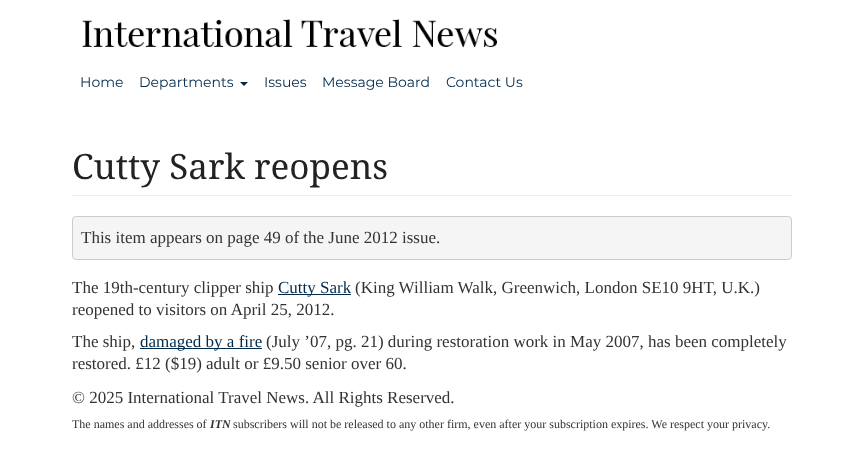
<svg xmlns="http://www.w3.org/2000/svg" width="864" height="472">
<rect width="100%" height="100%" fill="#fff"/>
<image x="82" y="19" width="415" height="28" href="media/1.png"/>
<text x="80" y="87" style="font-family:Montserrat;font-size:14px;font-weight:100;fill:#00294a">Home</text>
<text x="139" y="87" style="font-family:Montserrat;font-size:14px;font-weight:100;fill:#00294a">Departments</text>
<path d="M240 82h8l-4 4z" fill="#00294a"/>
<text x="264" y="87" style="font-family:Montserrat;font-size:14px;font-weight:100;fill:#00294a">Issues</text>
<text x="322" y="87" style="font-family:Montserrat;font-size:14px;font-weight:100;fill:#00294a">Message Board</text>
<text x="446" y="87" style="font-family:Montserrat;font-size:14px;font-weight:100;fill:#00294a">Contact Us</text>
<rect x="72" y="195" width="720" height="1" fill="#eee"/>
<text x="72" y="179" style="font-family:Noto Serif;font-size:35px;fill:#222">Cutty Sark reopens</text>
<rect x="72.5" y="216.5" width="719" height="43" rx="3.5" fill="#f5f5f5" stroke="#ccc"/>
<text x="81" y="243" style="font-family:Liberation Serif;font-size:17px;fill:#333">This item appears on page 49 of the June 2012 issue.</text>
<text x="72" y="293" style="font-family:Liberation Serif;font-size:17px;fill:#333">The 19th-century clipper ship</text>
<rect x="278" y="294" width="73" height="1" fill="#00294a"/>
<text x="278" y="293" style="font-family:Liberation Serif;font-size:17px;fill:#00294a">Cutty Sark</text>
<text x="355" y="293" style="font-family:Liberation Serif;font-size:17px;fill:#333">(King William Walk, Greenwich, London SE10 9HT, U.K.)</text>
<text x="72" y="315" style="font-family:Liberation Serif;font-size:17px;fill:#333">reopened to visitors on April 25, 2012.</text>
<text x="72" y="347" style="font-family:Liberation Serif;font-size:17px;fill:#333">The ship,</text>
<rect x="140" y="348" width="122" height="1" fill="#00294a"/>
<text x="140" y="347" style="font-family:Liberation Serif;font-size:17px;fill:#00294a">damaged by a fire</text>
<text x="266" y="347" style="font-family:Liberation Serif;font-size:17px;fill:#333">(July ’07, pg. 21) during restoration work in May 2007, has been completely</text>
<text x="72" y="369" style="font-family:Liberation Serif;font-size:17px;fill:#333">restored. £12 ($19) adult or £9.50 senior over 60.</text>
<text x="72" y="403" style="font-family:Liberation Serif;font-size:17px;fill:#333">© 2025 International Travel News. All Rights Reserved.</text>
<text x="72" y="428" style="font-family:Liberation Serif;font-size:12px;fill:#333">The names and addresses of</text>
<text x="210" y="428" style="font-family:Liberation Serif;font-size:12px;font-weight:bold;font-style:italic;fill:#333">ITN</text>
<text x="233" y="428" style="font-family:Liberation Serif;font-size:12px;fill:#333">subscribers will not be released to any other firm, even after your subscription expires. We respect your privacy.</text>
</svg>
